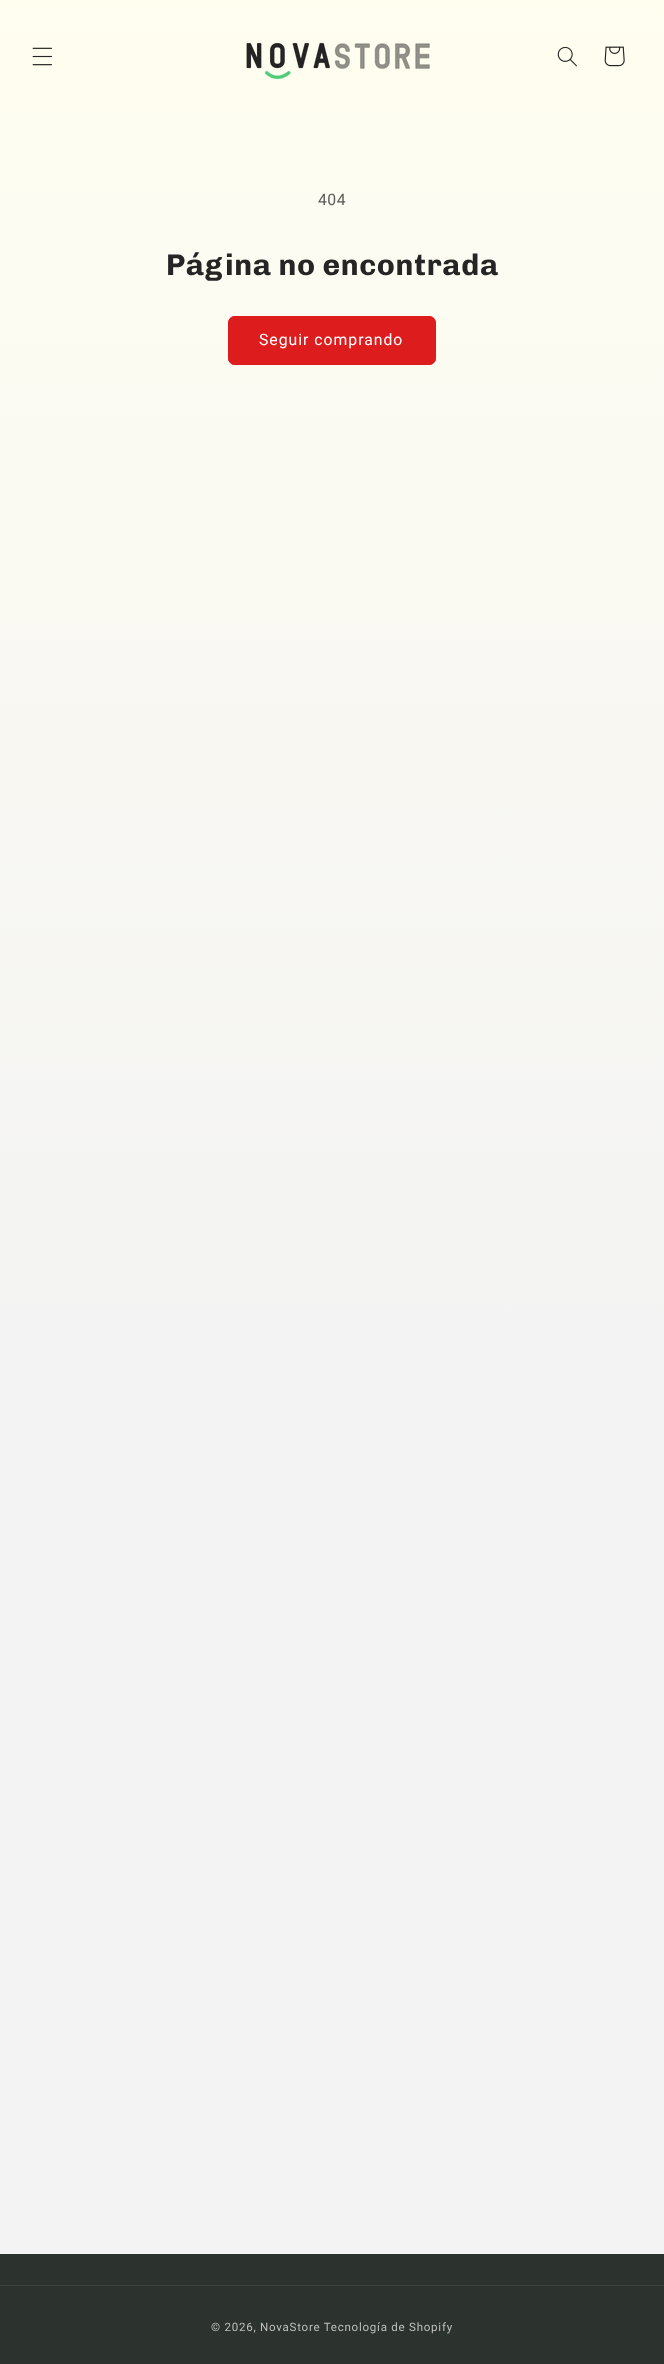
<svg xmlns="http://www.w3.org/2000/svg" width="664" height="2364">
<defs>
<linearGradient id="g1" gradientUnits="userSpaceOnUse" x1="332" y1="0" x2="332" y2="2364"><stop offset="0" stop-color="#fffef2"/><stop offset="0.57" stop-color="#f3f3f3"/></linearGradient>
<linearGradient id="g2" gradientUnits="userSpaceOnUse" x1="332" y1="0" x2="332" y2="2364"><stop offset="0" stop-color="#fffeef"/><stop offset="0.57" stop-color="#f3f3f3"/></linearGradient>
</defs>
<rect width="100%" height="100%" fill="#fff"/>
<rect y="113" width="664" height="2141" fill="url(#g1)"/>
<rect width="664" height="113" fill="url(#g2)"/>
<image x="32" y="47" width="20" height="19" href="media/1.png"/>
<image x="246" y="42" width="184" height="38" href="media/2.png"/>
<image x="557" y="46" width="20" height="21" href="media/3.png"/>
<image x="604" y="46" width="21" height="21" href="media/4.png"/>
<text x="318" y="205" style="font-family:Roboto;font-size:15.75px;letter-spacing:0.5px;fill:#5b5b58">404</text>
<text x="166" y="275" style="font-family:Chivo;font-size:30px;font-weight:bold;letter-spacing:0.6px;fill:#252525">Página no encontrada</text>
<rect x="228" y="316" width="208" height="49" rx="7" fill="#dd1d1d"/>
<rect x="228.5" y="316.5" width="207" height="48" rx="6.5" fill="none" stroke="#dd1d1d"/>
<text x="259" y="345" style="font-family:Roboto;font-size:15.75px;letter-spacing:1px;fill:#fff">Seguir comprando</text>
<rect y="2254" width="664" height="110" fill="#2c332f"/>
<rect y="2285" width="664" height="1" fill="#3c423e"/>
<text x="211" y="2331" style="font-family:Roboto;font-size:11.55px;letter-spacing:0.75px;fill:#bebebd">© 2026, NovaStore Tecnología de Shopify</text>
</svg>
